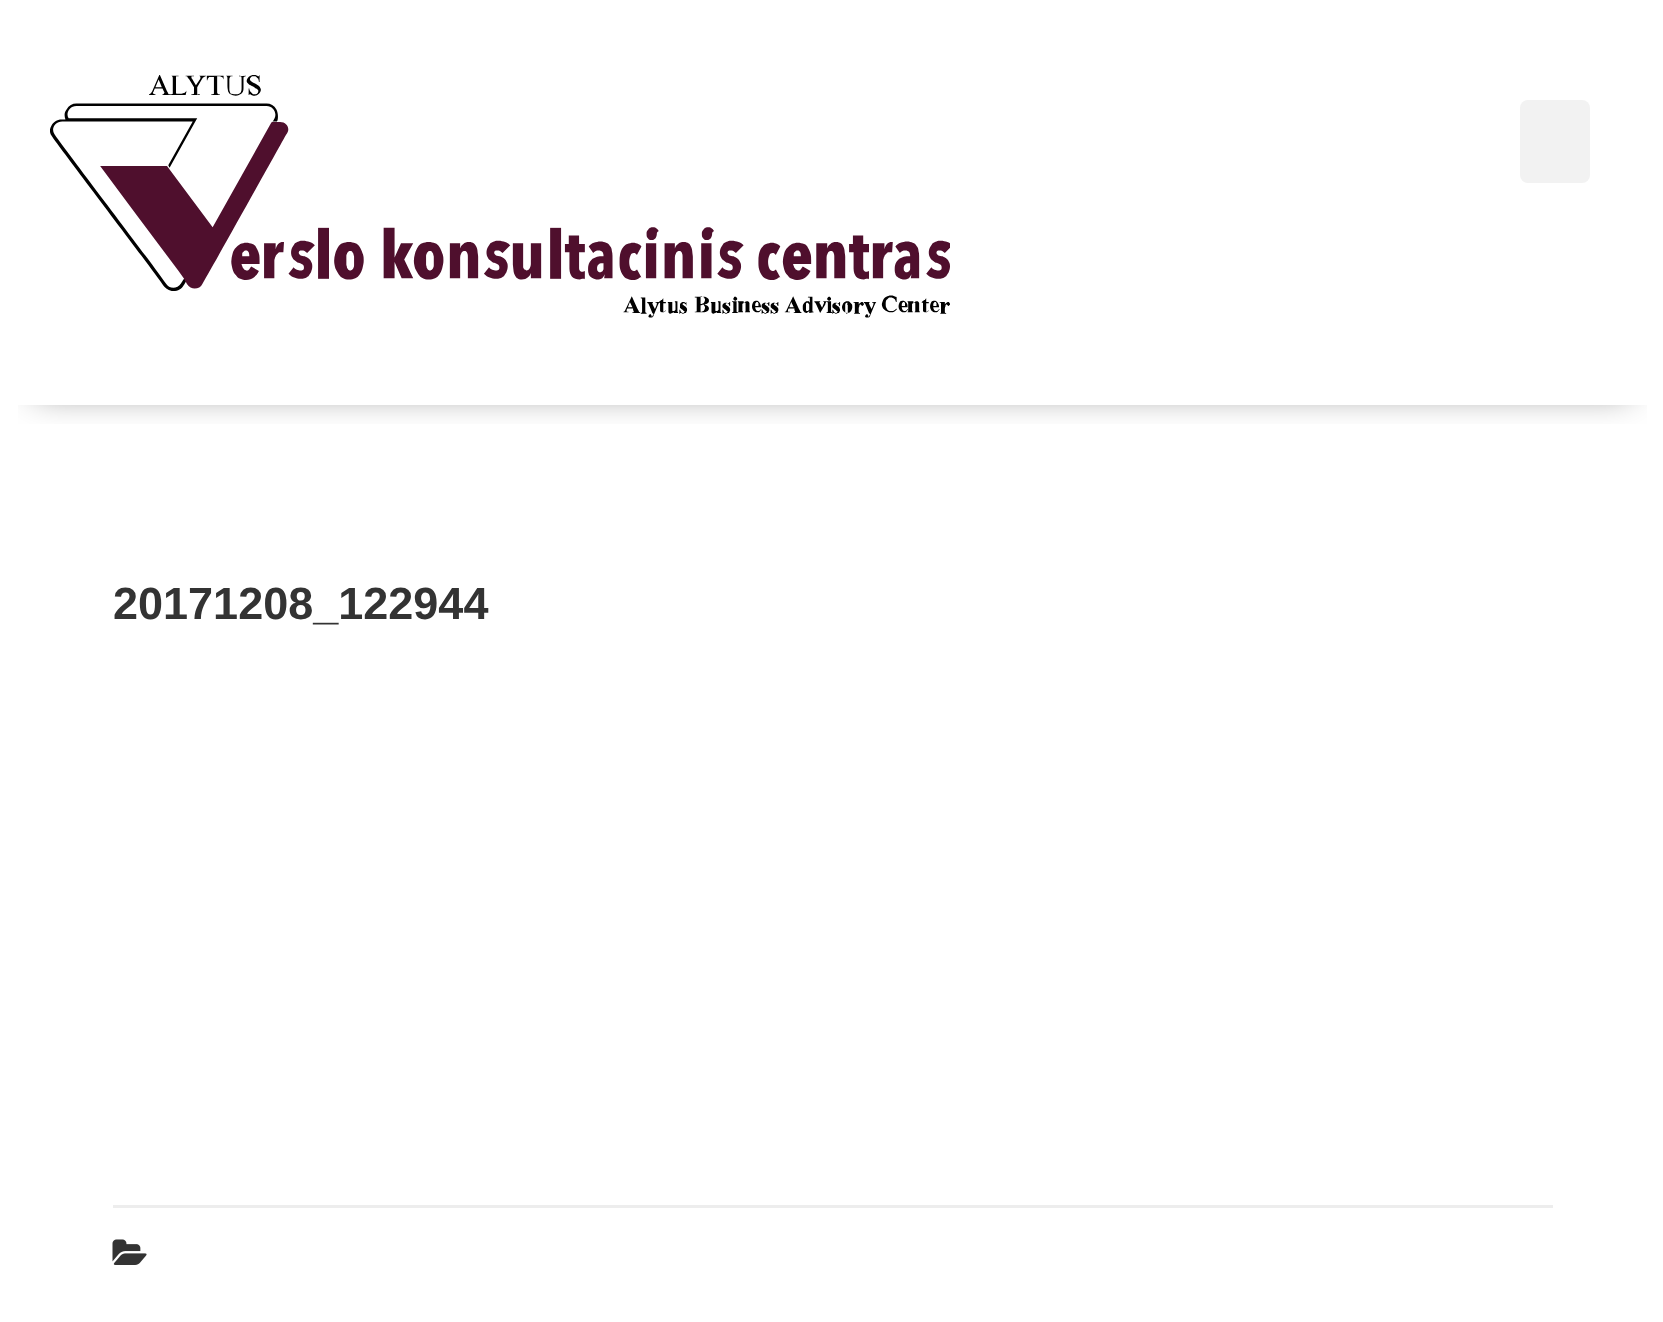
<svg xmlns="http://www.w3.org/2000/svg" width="1663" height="1322">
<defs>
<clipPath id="clip1"><rect x="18" y="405" width="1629" height="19"/></clipPath>
</defs>
<rect width="100%" height="100%" fill="#fff"/>
<g clip-path="url(#clip1)">
<rect x="35" y="58" width="1595" height="335" fill="#00000080" filter="blur(17.5px)"/>
</g>
<image x="50" y="75" width="900" height="243" href="media/1.png"/>
<rect x="1520" y="100" width="70" height="83" rx="8" fill="#f2f2f2"/>
<text x="113" y="619" style="font-family:Liberation Sans;font-size:45px;font-weight:bold;fill:#333">20171208_122944</text>
<rect x="113" y="1205" width="1440" height="3" fill="#ededed"/>
<image x="112" y="1239" width="35" height="26" href="media/2.png"/>
</svg>
